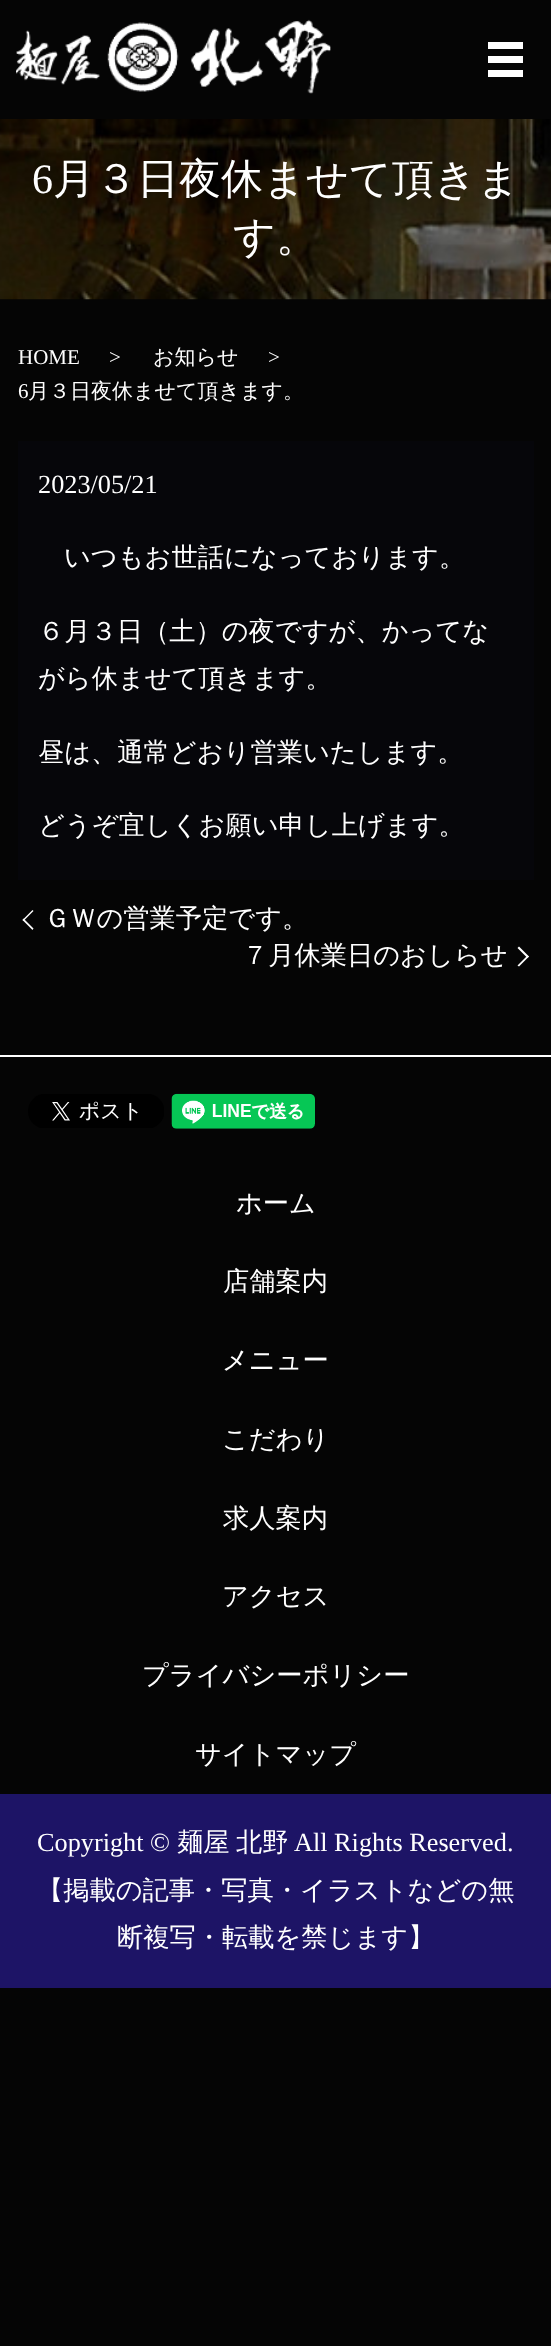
<svg xmlns="http://www.w3.org/2000/svg" width="551" height="2346">
<rect width="100%" height="100%" fill="#050505"/>
<image x="16" y="19" width="315" height="75" href="media/1.png"/>
<rect x="488" y="42" width="35" height="7" fill="#fff"/>
<rect x="488" y="56" width="35" height="7" fill="#fff"/>
<rect x="488" y="70" width="35" height="7" fill="#fff"/>
<image x="0" y="119" width="551" height="181" href="media/2.png"/>
<text x="32" y="193" style="font-family:Liberation Serif;font-size:42px;fill:#fff">6</text>
<text x="53" y="193" style="font-family:WenQuanYi Zen Hei;font-size:42px;font-weight:500;fill:#fff">月３日夜休ませて頂きま</text>
<text x="233" y="251" style="font-family:WenQuanYi Zen Hei;font-size:42px;font-weight:500;fill:#fff">す。</text>
<text x="18" y="364" style="font-family:Liberation Serif;font-size:21px;fill:#fff">HOME</text>
<text x="109" y="364" style="font-family:Liberation Serif;font-size:21px;fill:#fff">&gt;</text>
<text x="153" y="364" style="font-family:WenQuanYi Zen Hei;font-size:21px;font-weight:500;fill:#fff">お知らせ</text>
<text x="268" y="364" style="font-family:Liberation Serif;font-size:21px;fill:#fff">&gt;</text>
<text x="18" y="398" style="font-family:Liberation Serif;font-size:21px;fill:#fff">6</text>
<text x="28" y="398" style="font-family:WenQuanYi Zen Hei;font-size:21px;font-weight:500;fill:#fff">月３日夜休ませて頂きます。</text>
<rect x="18" y="441" width="516" height="439" fill="#06060a"/>
<text x="38" y="493" style="font-family:Liberation Serif;font-size:26.25px;fill:#fff">2023/05/21</text>
<text x="64" y="566" style="font-family:WenQuanYi Zen Hei;font-size:26.25px;font-weight:500;fill:#fff">いつもお世話になっております。</text>
<text x="38" y="640" style="font-family:WenQuanYi Zen Hei;font-size:26.25px;font-weight:500;fill:#fff">６月３日（土）の夜ですが、かってな</text>
<text x="38" y="687" style="font-family:WenQuanYi Zen Hei;font-size:26.25px;font-weight:500;fill:#fff">がら休ませて頂きます。</text>
<text x="38" y="761" style="font-family:WenQuanYi Zen Hei;font-size:26.25px;font-weight:500;fill:#fff">昼は、通常どおり営業いたします。</text>
<text x="38" y="834" style="font-family:WenQuanYi Zen Hei;font-size:26.25px;font-weight:500;fill:#fff">どうぞ宜しくお願い申し上げます。</text>
<path d="M22.5 920l10-10l1 1l-10 10z" fill="#fff"/>
<text x="44" y="927" style="font-family:WenQuanYi Zen Hei;font-size:26.25px;font-weight:500;fill:#fff">ＧＷの営業予定です。</text>
<path d="M32.5 930l-10-10l1-1.5l10 10z" fill="#fff"/>
<text x="242" y="964" style="font-family:WenQuanYi Zen Hei;font-size:26.25px;font-weight:500;fill:#fff">７月休業日のおしらせ</text>
<path d="M519 946.5l10 10l-1.5 1.5l-10-10z" fill="#fff"/>
<path d="M529 956.5l-10 10l-1.5-1l10-10z" fill="#fff"/>
<rect y="1055" width="551" height="2" fill="#fff"/>
<image x="28" y="1094" width="136" height="34" href="media/3.png"/>
<image x="171" y="1093" width="144" height="36" href="media/4.png"/>
<text x="236" y="1212" style="font-family:WenQuanYi Zen Hei;font-size:26.25px;font-weight:500;fill:#fff">ホーム</text>
<text x="223" y="1290" style="font-family:WenQuanYi Zen Hei;font-size:26.25px;font-weight:500;fill:#fff">店舗案内</text>
<text x="222" y="1369" style="font-family:WenQuanYi Zen Hei;font-size:26.25px;font-weight:500;fill:#fff">メニュー</text>
<text x="222" y="1448" style="font-family:WenQuanYi Zen Hei;font-size:26.25px;font-weight:500;fill:#fff">こだわり</text>
<text x="223" y="1527" style="font-family:WenQuanYi Zen Hei;font-size:26.25px;font-weight:500;fill:#fff">求人案内</text>
<text x="222" y="1605" style="font-family:WenQuanYi Zen Hei;font-size:26.25px;font-weight:500;fill:#fff">アクセス</text>
<text x="142" y="1684" style="font-family:WenQuanYi Zen Hei;font-size:26.25px;font-weight:500;fill:#fff">プライバシーポリシー</text>
<text x="195" y="1763" style="font-family:WenQuanYi Zen Hei;font-size:26.25px;font-weight:500;fill:#fff">サイトマップ</text>
<rect y="1794" width="551" height="194" fill="#1d1466"/>
<text x="37" y="1851" style="font-family:Liberation Serif;font-size:26.25px;fill:#fff">Copyright ©</text>
<text x="177" y="1851" style="font-family:WenQuanYi Zen Hei;font-size:26.25px;font-weight:500;fill:#fff">麺屋</text>
<text x="236" y="1851" style="font-family:WenQuanYi Zen Hei;font-size:26.25px;font-weight:500;fill:#fff">北野</text>
<text x="294" y="1851" style="font-family:Liberation Serif;font-size:26.25px;fill:#fff">All Rights Reserved.</text>
<text x="37" y="1899" style="font-family:WenQuanYi Zen Hei;font-size:26.25px;font-weight:500;fill:#fff">【掲載の記事・写真・イラストなどの無</text>
<text x="117" y="1946" style="font-family:WenQuanYi Zen Hei;font-size:26.25px;font-weight:500;fill:#fff">断複写・転載を禁じます】</text>
</svg>
